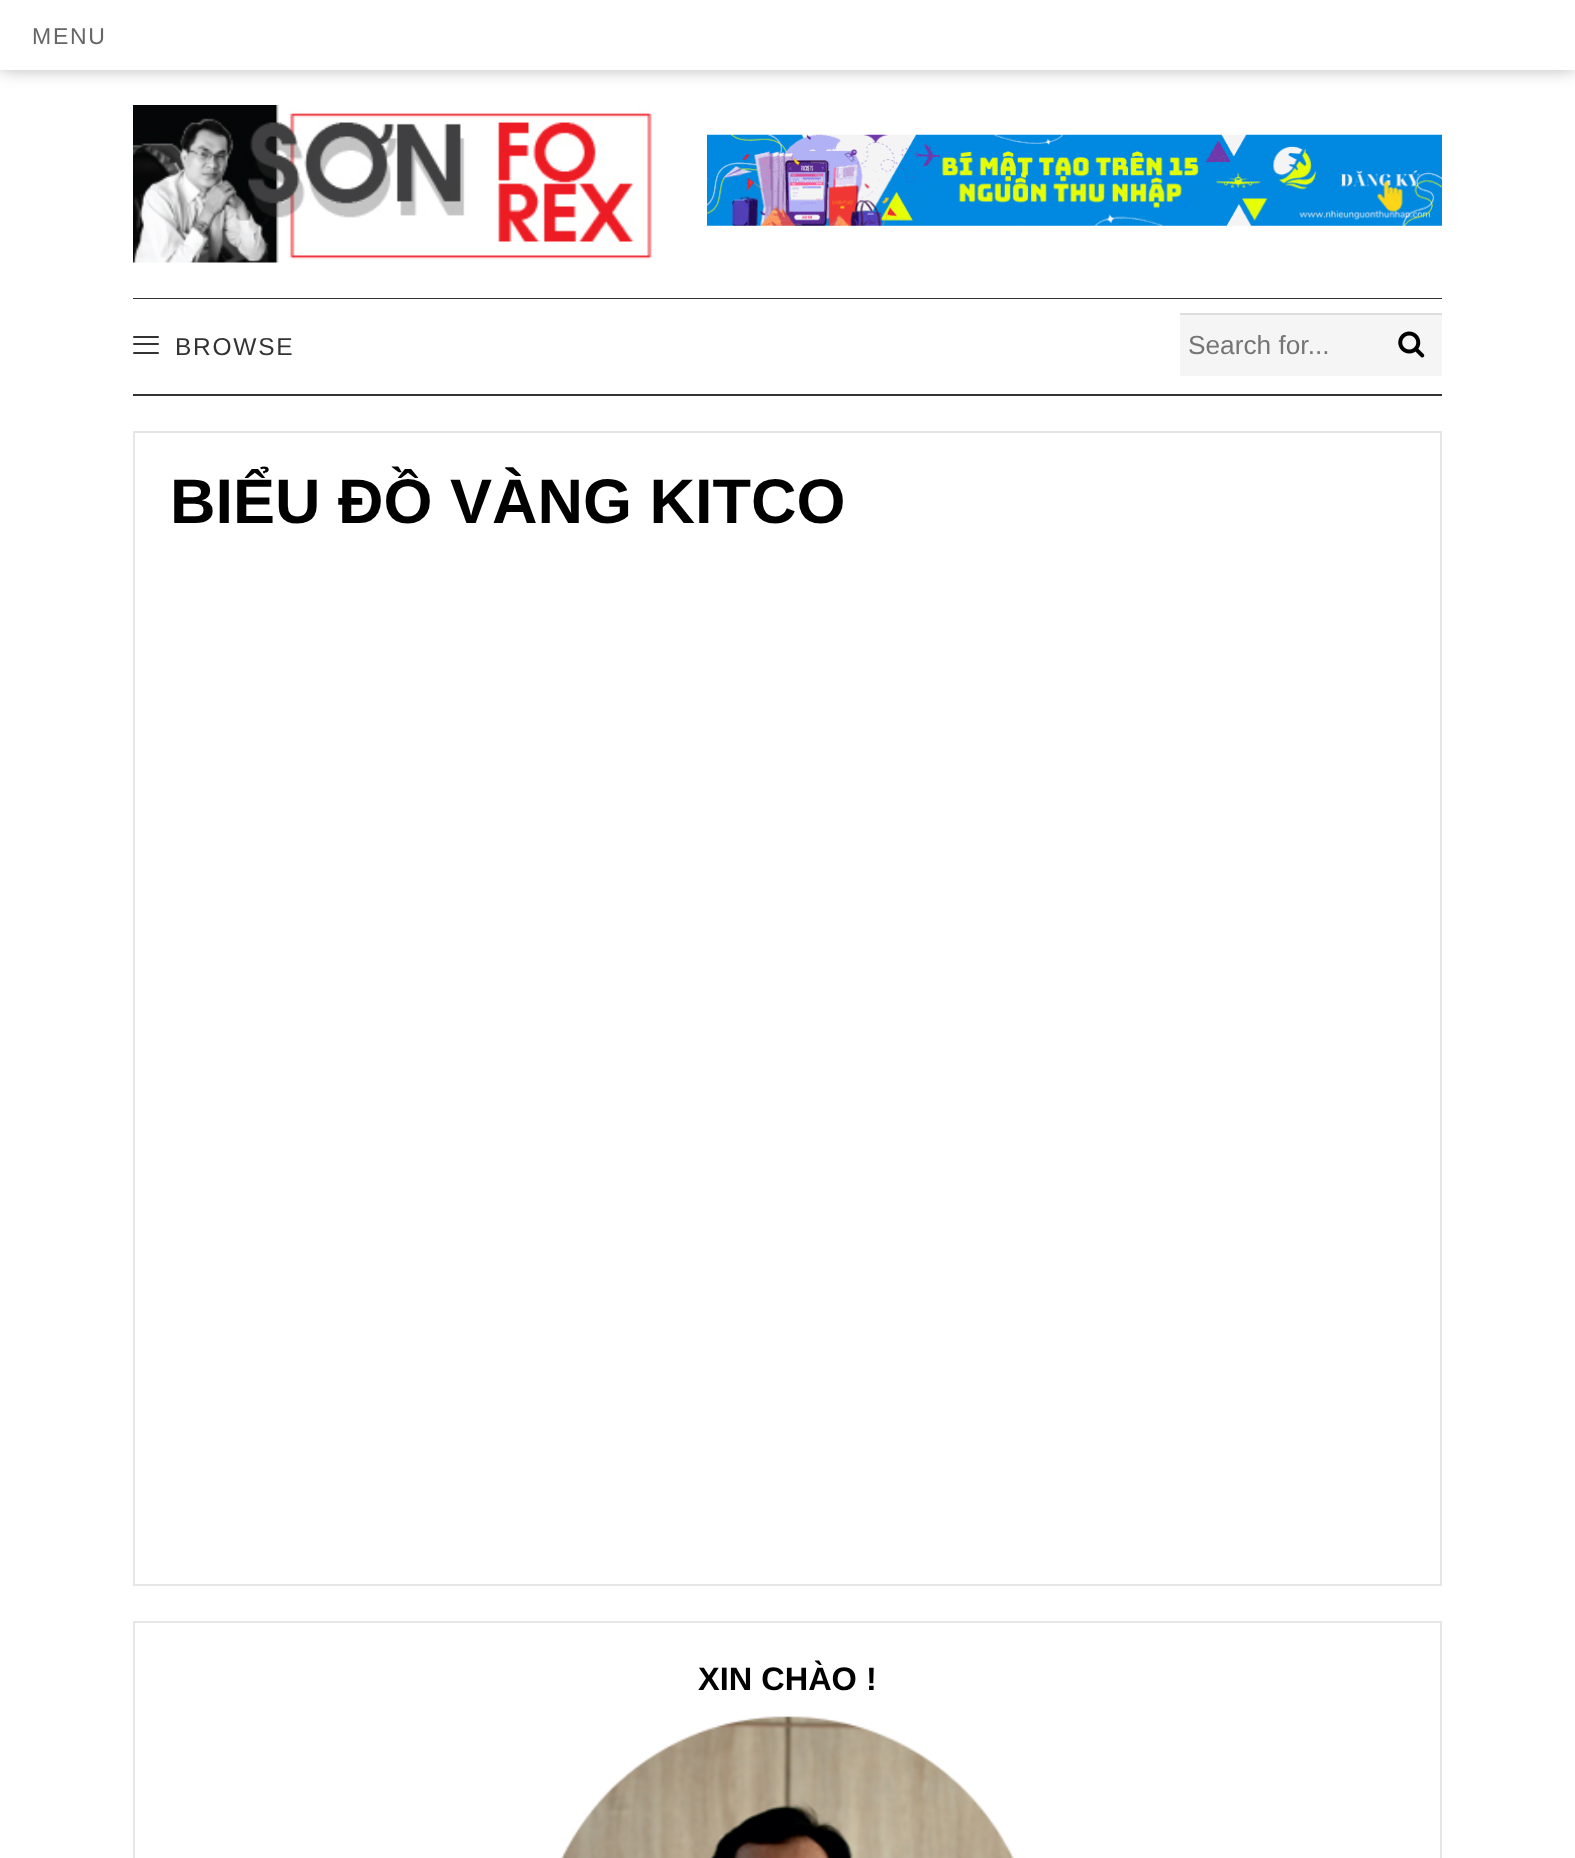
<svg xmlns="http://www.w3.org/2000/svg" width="1575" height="1858">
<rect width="100%" height="100%" fill="#fff"/>
<rect width="1575" height="63" fill="#00000033" filter="blur(9px)"/>
<rect width="1575" height="70" fill="#00000033" filter="blur(9px)"/>
<rect width="1575" height="70" fill="#fff"/>
<text x="32" y="44" style="font-family:Liberation Sans;font-size:23px;letter-spacing:1.75px;fill:#666">MENU</text>
<image x="133" y="105" width="519" height="158" href="media/1.png"/>
<image x="707" y="134" width="735" height="92" href="media/2.png"/>
<rect x="133" y="298" width="1309" height="1" fill="#333"/>
<rect x="133" y="394" width="1309" height="2" fill="#333"/>
<rect x="133" y="336" width="26" height="2" rx="1" fill="#333"/>
<rect x="133" y="343" width="26" height="2" rx="1" fill="#333"/>
<rect x="133" y="352" width="26" height="2" rx="1" fill="#333"/>
<text x="175" y="355" style="font-family:Liberation Sans;font-size:24.5px;letter-spacing:1.75px;fill:#333">BROWSE</text>
<rect x="1180" y="315" width="262" height="61" fill="#f5f5f5"/>
<rect x="1180" y="313" width="262" height="2" fill="#ddd"/>
<text x="1188" y="354" style="font-family:Liberation Sans;font-size:26.25px;fill:#757575">Search for...</text>
<image x="1398" y="331" width="27" height="27" href="media/3.png"/>
<rect x="134" y="432" width="1307" height="1153" fill="none" stroke="#e6e6e6" stroke-width="2"/>
<text x="170" y="523" style="font-family:Arimo;font-size:63px;font-weight:bold;fill:#000">BIỂU ĐỒ VÀNG KITCO</text>
<rect x="134" y="1622" width="1307" height="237" fill="none" stroke="#e6e6e6" stroke-width="2"/>
<text x="698" y="1690" style="font-family:Liberation Sans;font-size:32.5px;font-weight:bold;fill:#000">XIN CHÀO !</text>
<image x="561" y="1716" width="453" height="142" href="media/4.png"/>
</svg>
